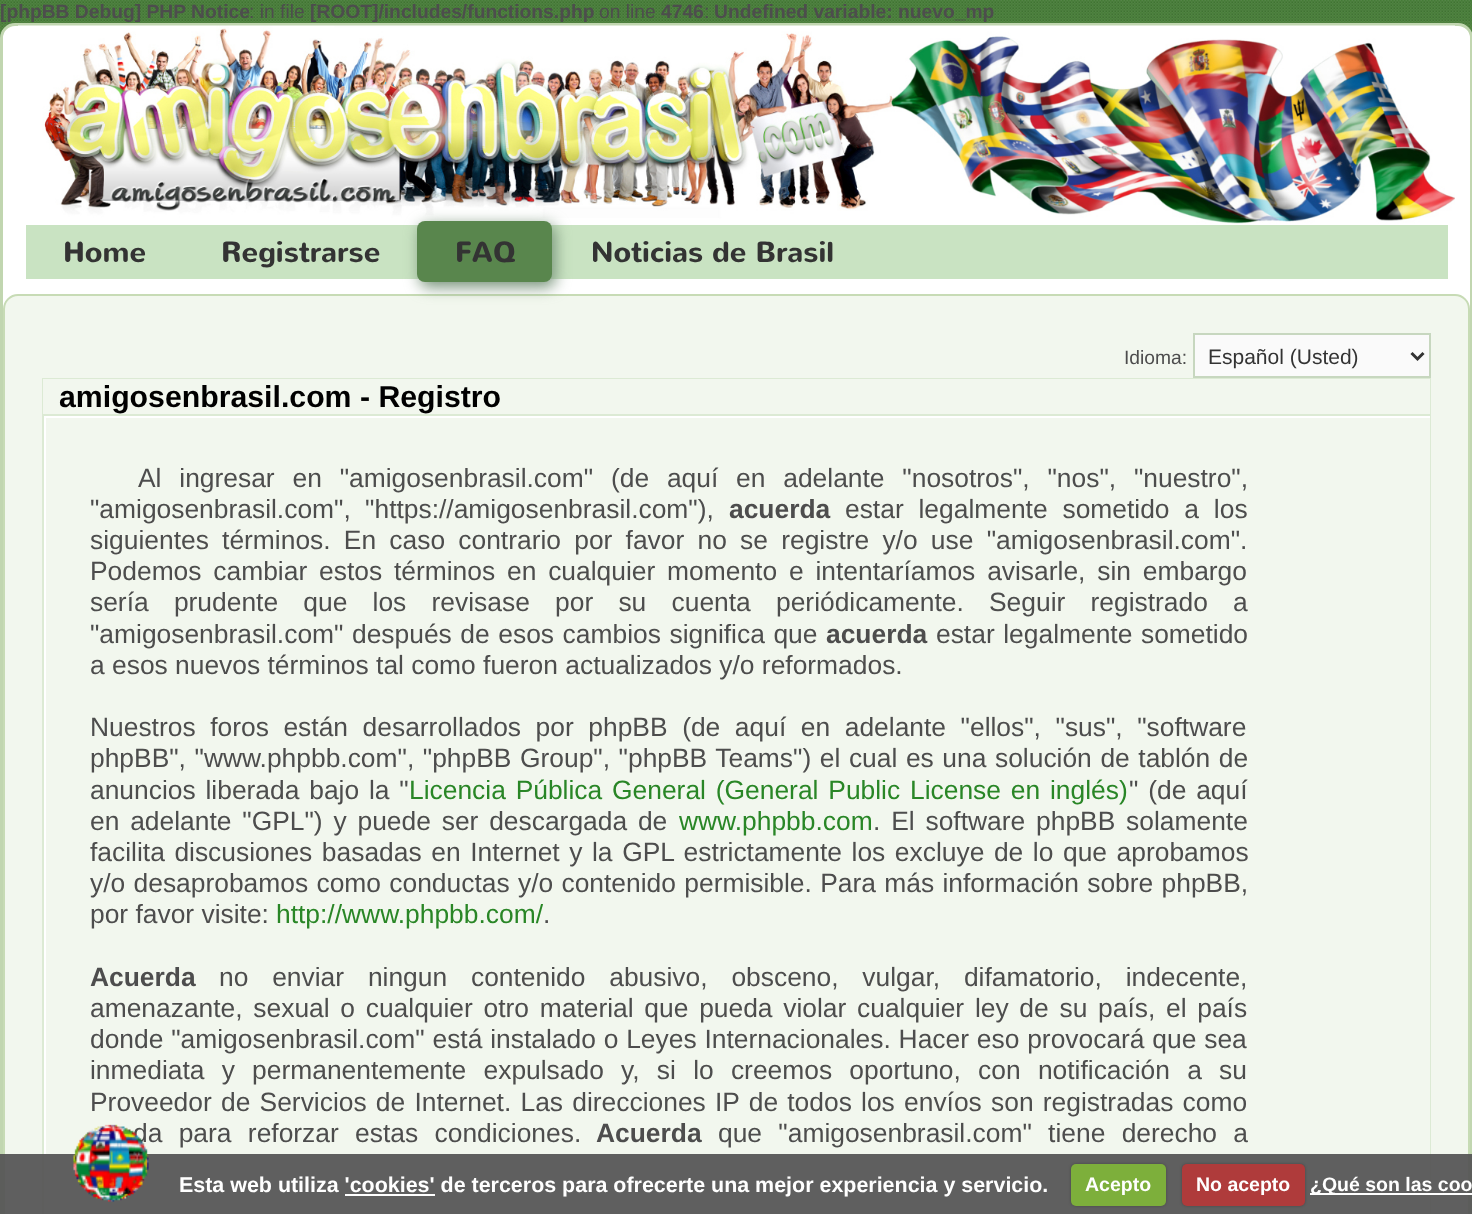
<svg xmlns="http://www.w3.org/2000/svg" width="1472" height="1214">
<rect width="100%" height="100%" fill="#fff"/>
<image x="0" y="0" width="1472" height="38" href="media/1.png"/>
<text x="0" y="18" style="font-family:Liberation Sans;font-size:19.25px;font-weight:bold;fill:#4d4d4d">[phpBB Debug] PHP Notice</text>
<text x="249" y="18" style="font-family:Liberation Sans;font-size:19.25px;fill:#4d4d4d">: in file</text>
<text x="310" y="18" style="font-family:Liberation Sans;font-size:19.25px;font-weight:bold;fill:#4d4d4d">[ROOT]/includes/functions.php</text>
<text x="599" y="18" style="font-family:Liberation Sans;font-size:19.25px;fill:#4d4d4d">on line</text>
<text x="661" y="18" style="font-family:Liberation Sans;font-size:19.25px;font-weight:bold;fill:#4d4d4d">4746</text>
<text x="704" y="18" style="font-family:Liberation Sans;font-size:19.25px;fill:#4d4d4d">:</text>
<text x="714" y="18" style="font-family:Liberation Sans;font-size:19.25px;font-weight:bold;fill:#4d4d4d">Undefined variable: nuevo_mp</text>
<rect x="1.5" y="24.5" width="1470" height="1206" rx="13.5" fill="#fff" stroke="#c1d6b0" stroke-width="3"/>
<image x="18" y="25" width="1437" height="199" href="media/2.png"/>
<rect x="26" y="225" width="1422" height="54" fill="#c9e3c2"/>
<text x="63" y="262" style="font-family:Nunito;font-size:28.75px;font-weight:bold;fill:#333">Home</text>
<text x="221" y="262" style="font-family:Nunito;font-size:28.75px;font-weight:bold;fill:#333">Registrarse</text>
<rect x="4" y="295" width="1465" height="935" rx="14" fill="#f2f7ee" stroke="#c7dbb5" stroke-width="2"/>
<rect x="420" y="225" width="135" height="62" rx="8" fill="#749076" filter="blur(7.5px)"/>
<rect x="417" y="221" width="135" height="61" rx="8" fill="#59864d"/>
<text x="591" y="262" style="font-family:Nunito;font-size:28.75px;font-weight:bold;fill:#333">Noticias de Brasil</text>
<text x="455" y="262" style="font-family:Nunito;font-size:28.75px;font-weight:bold;fill:#333">FAQ</text>
<text x="1124" y="364" style="font-family:Liberation Sans;font-size:19.25px;fill:#4d4d4d">Idioma:</text>
<rect x="1194" y="334" width="236" height="43" fill="#fafafa" stroke="#c7d7bf" stroke-width="2"/>
<path d="M1411.5 353l6 6l6-6" fill="none" stroke="#333" stroke-width="3"/>
<text x="1208" y="364" style="font-family:Liberation Sans;font-size:21px;fill:#333">Español (Usted)</text>
<rect x="42" y="378" width="1389" height="836" fill="#dcead4"/>
<rect x="43" y="379" width="1387" height="35" fill="#f2f7ee"/>
<text x="59" y="407" style="font-family:Liberation Sans;font-size:30.25px;font-weight:bold;fill:#000">amigosenbrasil.com - Registro</text>
<rect x="46" y="418" width="1384" height="796" fill="#f2f7ee"/>
<rect x="44" y="416" width="1386" height="2" fill="#fff"/>
<rect x="44" y="416" width="2" height="798" fill="#fff"/>
<text x="138" y="487" word-spacing="10.5" style="font-family:Liberation Sans;font-size:26.4px;fill:#4d4d4d">Al ingresar en "amigosenbrasil.com" (de aquí en adelante "nosotros", "nos", "nuestro",</text>
<text x="90" y="518" word-spacing="7" style="font-family:Liberation Sans;font-size:26.4px;fill:#4d4d4d">"amigosenbrasil.com", "https://amigosenbrasil.com"),</text>
<text x="729" y="518" style="font-family:Liberation Sans;font-size:26.4px;font-weight:bold;fill:#4d4d4d">acuerda</text>
<text x="845" y="518" word-spacing="7.5" style="font-family:Liberation Sans;font-size:26.4px;fill:#4d4d4d">estar legalmente sometido a los</text>
<text x="90" y="549" word-spacing="5.9" style="font-family:Liberation Sans;font-size:26.4px;fill:#4d4d4d">siguientes términos. En caso contrario por favor no se registre y/o use "amigosenbrasil.com".</text>
<text x="90" y="580" word-spacing="4.5" style="font-family:Liberation Sans;font-size:26.4px;fill:#4d4d4d">Podemos cambiar estos términos en cualquier momento e intentaríamos avisarle, sin embargo</text>
<text x="90" y="611" word-spacing="17.9" style="font-family:Liberation Sans;font-size:26.4px;fill:#4d4d4d">sería prudente que los revisase por su cuenta periódicamente. Seguir registrado a</text>
<text x="90" y="643" word-spacing="1.25" style="font-family:Liberation Sans;font-size:26.4px;fill:#4d4d4d">"amigosenbrasil.com" después de esos cambios significa que</text>
<text x="826" y="643" style="font-family:Liberation Sans;font-size:26.4px;font-weight:bold;fill:#4d4d4d">acuerda</text>
<text x="936" y="643" word-spacing="1.25" style="font-family:Liberation Sans;font-size:26.4px;fill:#4d4d4d">estar legalmente sometido</text>
<text x="90" y="674" style="font-family:Liberation Sans;font-size:26.4px;fill:#4d4d4d">a esos nuevos términos tal como fueron actualizados y/o reformados.</text>
<text x="90" y="736" word-spacing="7.25" style="font-family:Liberation Sans;font-size:26.4px;fill:#4d4d4d">Nuestros foros están desarrollados por phpBB (de aquí en adelante "ellos", "sus", "software</text>
<text x="90" y="767" word-spacing="1.25" style="font-family:Liberation Sans;font-size:26.4px;fill:#4d4d4d">phpBB", "www.phpbb.com", "phpBB Group", "phpBB Teams") el cual es una solución de tablón de</text>
<text x="90" y="799" word-spacing="2.5" style="font-family:Liberation Sans;font-size:26.4px;fill:#4d4d4d">anuncios liberada bajo la "</text>
<text x="409" y="799" word-spacing="2.5" style="font-family:Liberation Sans;font-size:26.4px;fill:#298626">Licencia Pública General (General Public License en inglés)</text>
<text x="1129" y="799" word-spacing="2.5" style="font-family:Liberation Sans;font-size:26.4px;fill:#4d4d4d">" (de aquí</text>
<text x="90" y="830" word-spacing="3.5" style="font-family:Liberation Sans;font-size:26.4px;fill:#4d4d4d">en adelante "GPL") y puede ser descargada de</text>
<text x="679" y="830" style="font-family:Liberation Sans;font-size:26.4px;fill:#298626">www.phpbb.com</text>
<text x="873" y="830" word-spacing="3.5" style="font-family:Liberation Sans;font-size:26.4px;fill:#4d4d4d">. El software phpBB solamente</text>
<text x="90" y="861" word-spacing="2.25" style="font-family:Liberation Sans;font-size:26.4px;fill:#4d4d4d">facilita discusiones basadas en Internet y la GPL estrictamente los excluye de lo que aprobamos</text>
<text x="90" y="892" word-spacing="1" style="font-family:Liberation Sans;font-size:26.4px;fill:#4d4d4d">y/o desaprobamos como conductas y/o contenido permisible. Para más información sobre phpBB,</text>
<text x="90" y="923" style="font-family:Liberation Sans;font-size:26.4px;fill:#4d4d4d">por favor visite:</text>
<text x="276" y="923" style="font-family:Liberation Sans;font-size:26.4px;fill:#298626">http://www.phpbb.com/</text>
<text x="543" y="923" style="font-family:Liberation Sans;font-size:26.4px;fill:#4d4d4d">.</text>
<text x="90" y="986" style="font-family:Liberation Sans;font-size:26.4px;font-weight:bold;fill:#4d4d4d">Acuerda</text>
<text x="219" y="986" word-spacing="16.5" style="font-family:Liberation Sans;font-size:26.4px;fill:#4d4d4d">no enviar ningun contenido abusivo, obsceno, vulgar, difamatorio, indecente,</text>
<text x="90" y="1017" word-spacing="3.4" style="font-family:Liberation Sans;font-size:26.4px;fill:#4d4d4d">amenazante, sexual o cualquier otro material que pueda violar cualquier ley de su país, el país</text>
<text x="90" y="1048" word-spacing="0.5" style="font-family:Liberation Sans;font-size:26.4px;fill:#4d4d4d">donde "amigosenbrasil.com" está instalado o Leyes Internacionales. Hacer eso provocará que sea</text>
<text x="90" y="1079" word-spacing="9.9" style="font-family:Liberation Sans;font-size:26.4px;fill:#4d4d4d">inmediata y permanentemente expulsado y, si lo creemos oportuno, con notificación a su</text>
<text x="90" y="1111" word-spacing="1.9" style="font-family:Liberation Sans;font-size:26.4px;fill:#4d4d4d">Proveedor de Servicios de Internet. Las direcciones IP de todos los envíos son registradas como</text>
<text x="133" y="1142" word-spacing="9" style="font-family:Liberation Sans;font-size:26.4px;fill:#4d4d4d">da para reforzar estas condiciones.</text>
<text x="596" y="1142" style="font-family:Liberation Sans;font-size:26.4px;font-weight:bold;fill:#4d4d4d">Acuerda</text>
<text x="718" y="1142" word-spacing="9" style="font-family:Liberation Sans;font-size:26.4px;fill:#4d4d4d">que "amigosenbrasil.com" tiene derecho a</text>
<rect y="1154" width="1472" height="60" fill="#565656f2"/>
<image x="73" y="1124" width="76" height="78" href="media/3.png"/>
<text x="179" y="1192" style="font-family:Liberation Sans;font-size:21.45px;font-weight:bold;fill:#fff">Esta web utiliza 'cookies' de terceros para ofrecerte una mejor experiencia y servicio.</text>
<rect x="345" y="1194" width="90" height="2" fill="#fff"/>
<rect x="1071" y="1164" width="95" height="42" rx="5" fill="#00000040" filter="blur(1.5px)"/>
<rect x="1071" y="1164" width="95" height="42" rx="5" fill="#7daf3b"/>
<text x="1085" y="1191" style="font-family:Liberation Sans;font-size:19.5px;font-weight:bold;fill:#fff">Acepto</text>
<rect x="1182" y="1164" width="123" height="42" rx="5" fill="#00000040" filter="blur(1.5px)"/>
<rect x="1182" y="1164" width="123" height="42" rx="5" fill="#af3b3b"/>
<text x="1196" y="1191" style="font-family:Liberation Sans;font-size:19.5px;font-weight:bold;fill:#fff">No acepto</text>
<rect x="1310" y="1193" width="162" height="2" fill="#fff"/>
<text x="1310" y="1191" style="font-family:Liberation Sans;font-size:19.5px;font-weight:bold;fill:#fff">¿Qué son las coo</text>
</svg>
